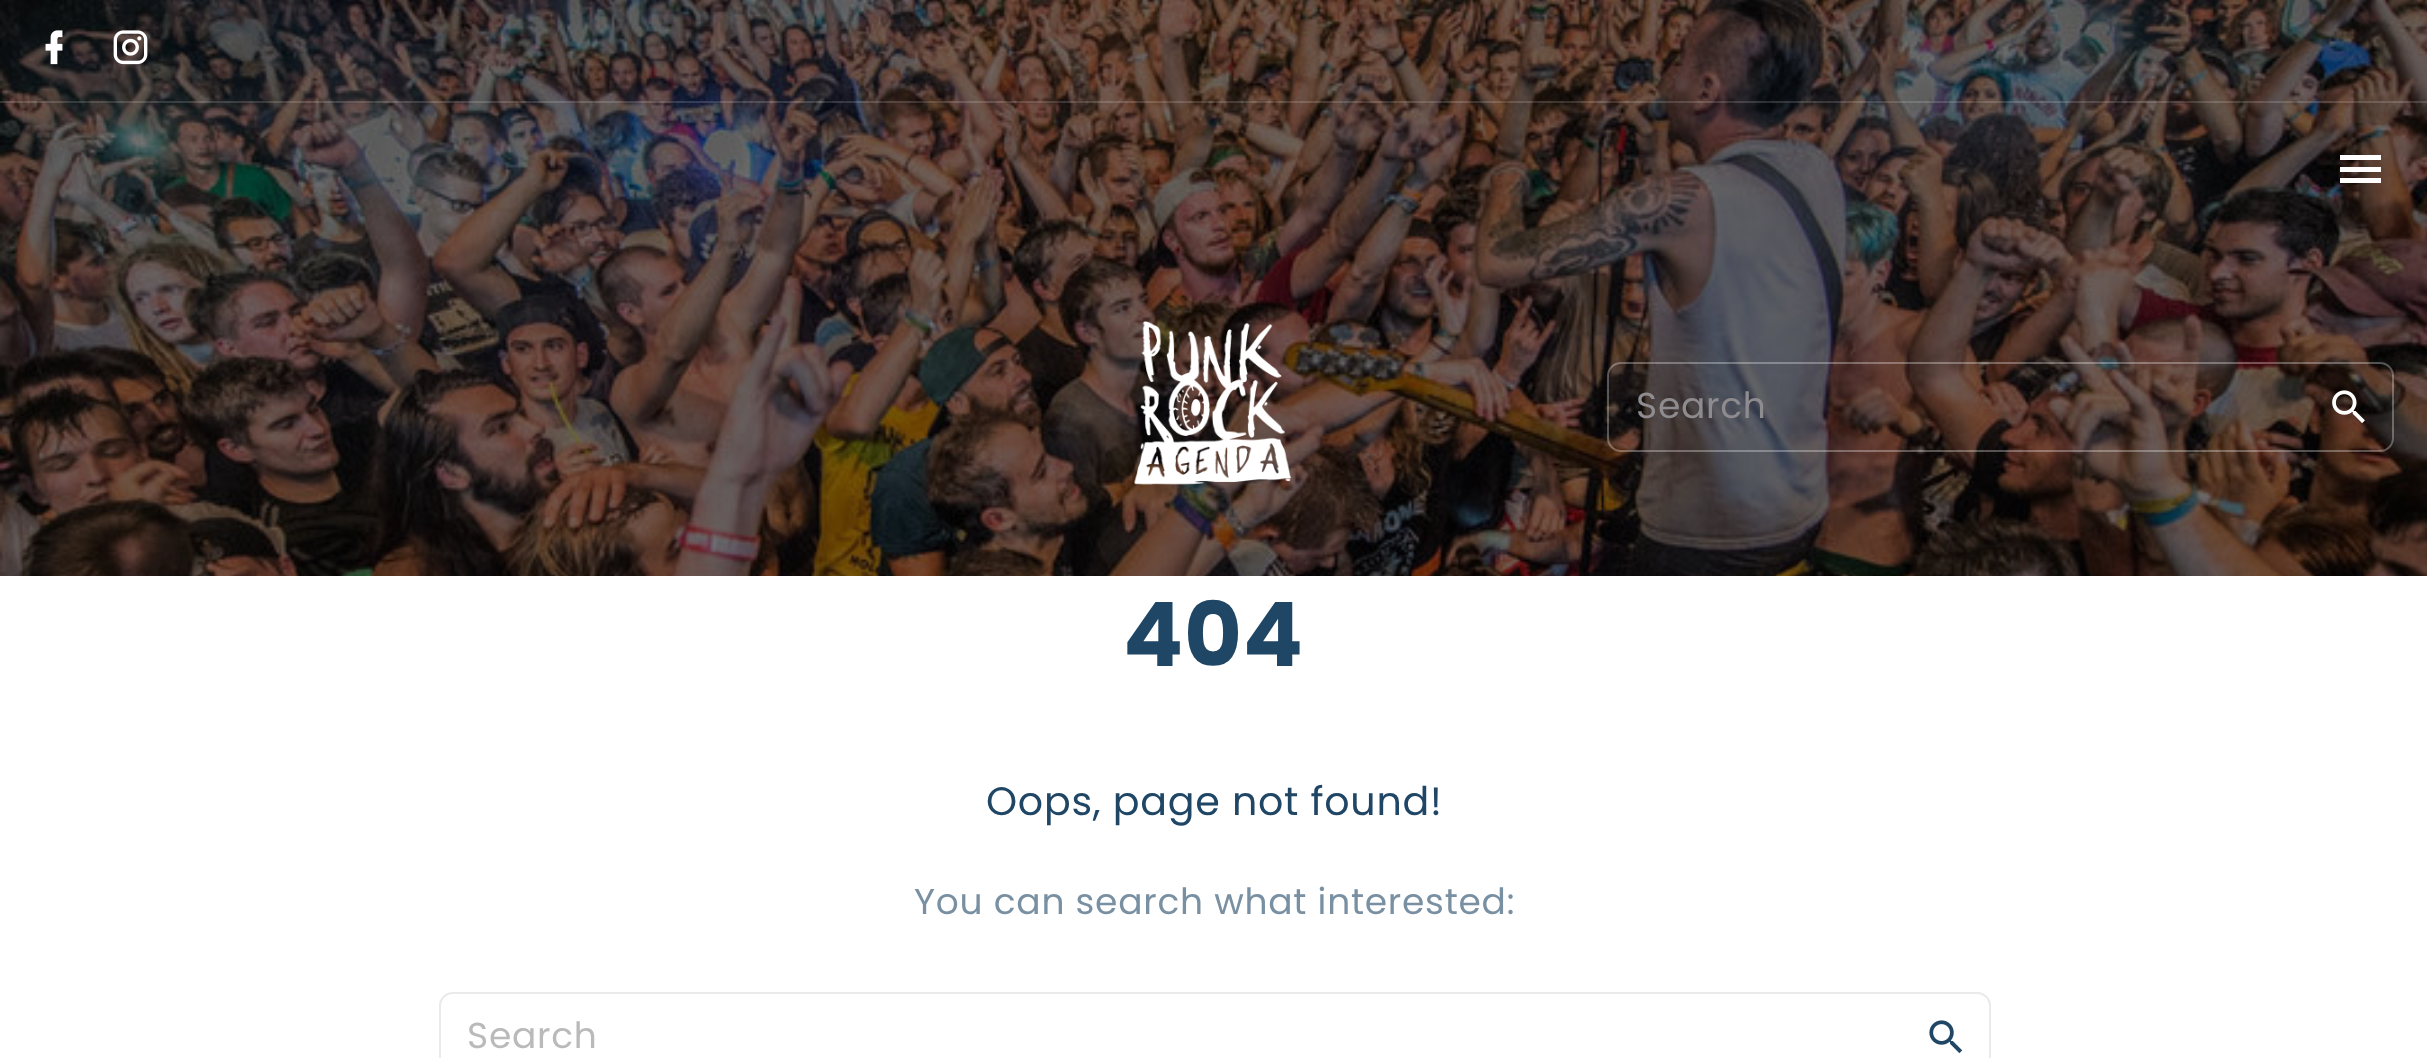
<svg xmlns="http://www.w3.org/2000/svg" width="2427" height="1058">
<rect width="100%" height="100%" fill="#fff"/>
<image x="0" y="0" width="2427" height="576" href="media/1.png"/>
<image x="45" y="30" width="18" height="35" href="media/2.png"/>
<image x="113" y="30" width="35" height="35" href="media/3.png"/>
<rect y="101" width="2427" height="2" fill="#ffffff26"/>
<rect x="2340" y="167" width="41" height="5" fill="#fff"/>
<rect x="2340" y="155" width="41" height="5" fill="#fff"/>
<rect x="2340" y="178" width="41" height="5" fill="#fff"/>
<image x="1134" y="321" width="158" height="164" href="media/4.png"/>
<rect x="1608" y="363" width="785" height="88" rx="13" fill="none" stroke="#ffffff4d" stroke-width="2"/>
<text x="1636" y="418" style="font-family:Poppins;font-size:36px;letter-spacing:0.75px;fill:#8e8c8f">Search</text>
<image x="2332" y="390" width="33" height="34" href="media/5.png"/>
<text x="1123" y="666" style="font-family:Poppins;font-size:89px;font-weight:bold;letter-spacing:0.75px;fill:#204666">404</text>
<text x="986" y="815" style="font-family:Poppins;font-size:39.6px;letter-spacing:0.75px;fill:#204666">Oops, page not found!</text>
<text x="914" y="914" style="font-family:Poppins;font-size:36px;letter-spacing:0.75px;fill:#7990a3">You can search what interested:</text>
<rect x="440" y="993" width="1550" height="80" rx="13" fill="none" stroke="#eaeaea" stroke-width="2"/>
<text x="467" y="1048" style="font-family:Poppins;font-size:36px;letter-spacing:0.75px;fill:#bababa">Search</text>
<image x="1929" y="1020" width="34" height="34" href="media/6.png"/>
</svg>
